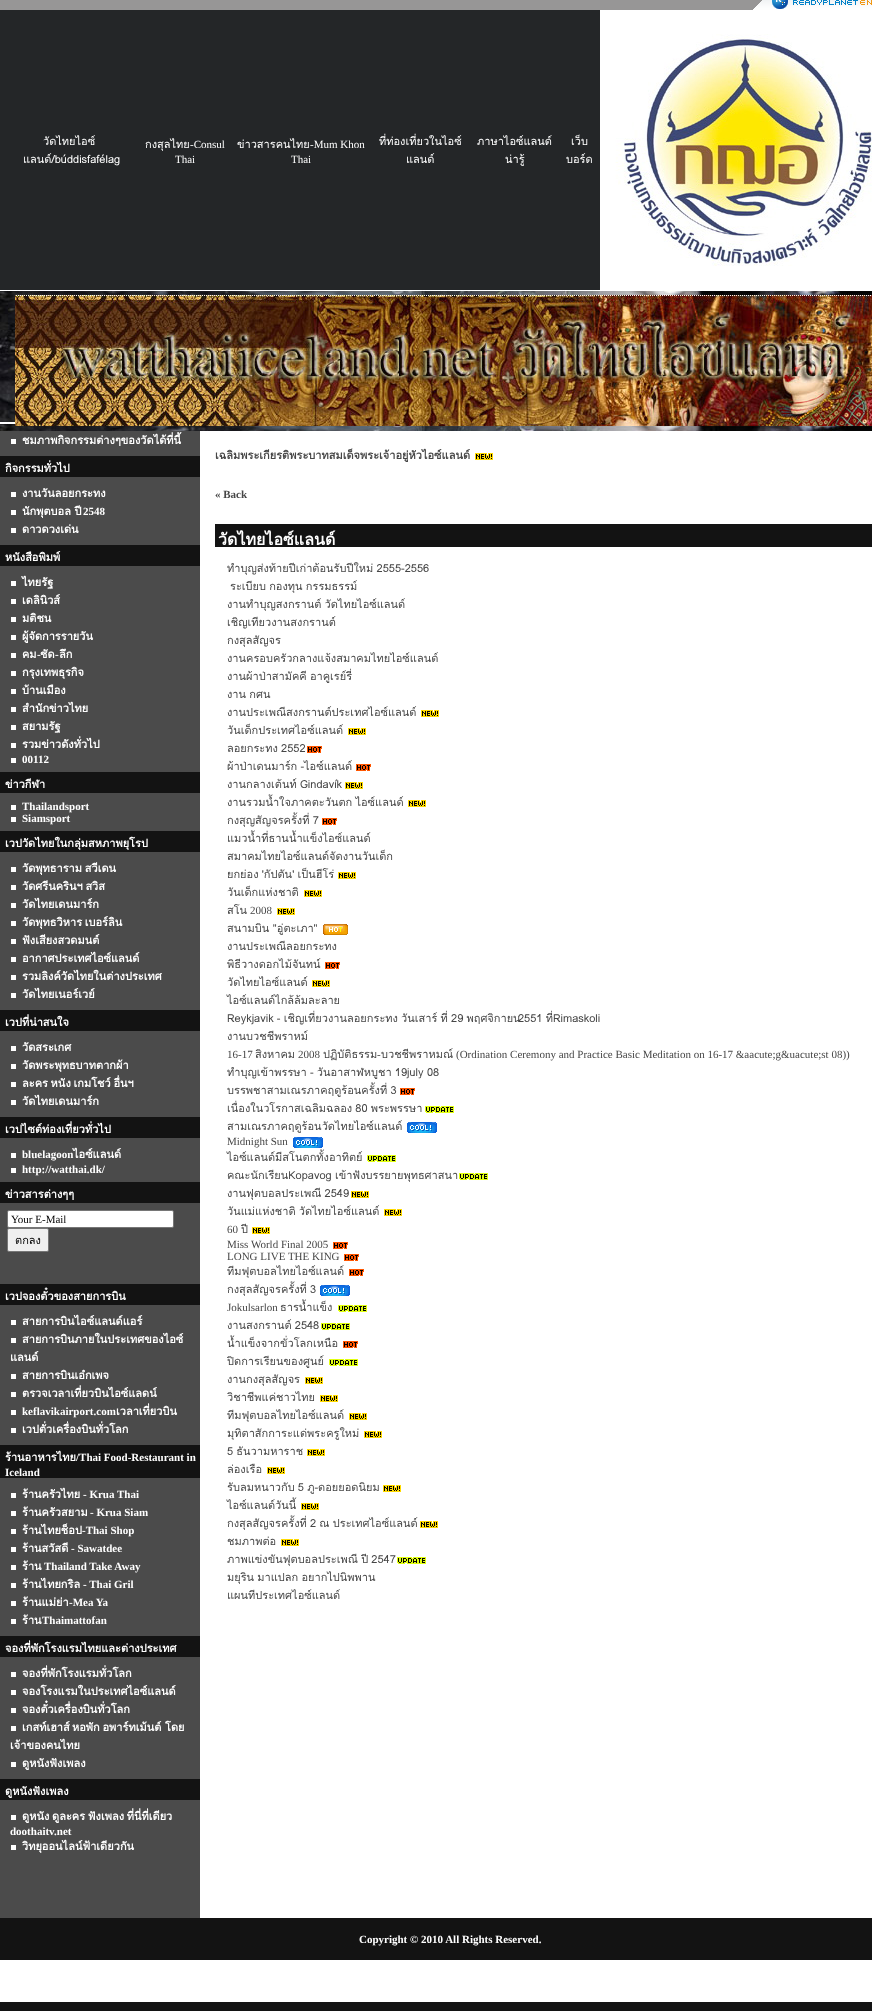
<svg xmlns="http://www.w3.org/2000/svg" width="872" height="2011">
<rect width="100%" height="100%" fill="#979696"/>
<image x="753" y="0" width="119" height="10" href="media/1.png"/>
<rect y="10" width="600" height="280" fill="#242628"/>
<text x="43" y="145" style="font-family:Loma;font-size:11px;fill:#fff">วัดไทยไอซ์</text>
<text x="23" y="163" style="font-family:Loma;font-size:11px;fill:#fff">แลนด์/búddisfafélag</text>
<text x="145" y="148" style="font-family:Loma;font-size:11px;fill:#fff">กงสุลไทย</text>
<text x="190" y="148" style="font-family:Liberation Serif;font-size:11px;fill:#fff">-Consul</text>
<text x="175" y="163" style="font-family:Liberation Serif;font-size:11px;fill:#fff">Thai</text>
<text x="237" y="148" style="font-family:Loma;font-size:11px;fill:#fff">ข่าวสารคนไทย</text>
<text x="310" y="148" style="font-family:Liberation Serif;font-size:11px;fill:#fff">-Mum Khon</text>
<text x="291" y="163" style="font-family:Liberation Serif;font-size:11px;fill:#fff">Thai</text>
<text x="379" y="145" style="font-family:Loma;font-size:11px;fill:#fff">ที่ท่องเที่ยวในไอซ์</text>
<text x="406" y="163" style="font-family:Loma;font-size:11px;fill:#fff">แลนด์</text>
<text x="477" y="145" style="font-family:Loma;font-size:11px;fill:#fff">ภาษาไอซ์แลนด์</text>
<text x="505" y="163" style="font-family:Loma;font-size:11px;fill:#fff">น่ารู้</text>
<text x="571" y="145" style="font-family:Loma;font-size:11px;fill:#fff">เว็บ</text>
<text x="566" y="163" style="font-family:Loma;font-size:11px;fill:#fff">บอร์ด</text>
<image x="600" y="10" width="272" height="280" href="media/2.png"/>
<image x="0" y="290" width="872" height="141" href="media/3.png"/>
<image x="15" y="295" width="857" height="131" href="media/4.png"/>
<rect y="431" width="200" height="1487" fill="#4b4b4b"/>
<rect x="11" y="439" width="5" height="5" fill="#fff"/>
<text x="22" y="444" style="font-family:Loma;font-size:11px;font-weight:bold;fill:#fff">ชมภาพกิจกรรมต่างๆของวัดได้ที่นี้</text>
<rect y="456" width="200" height="21" fill="#131313"/>
<text x="5" y="472" style="font-family:Loma;font-size:11px;font-weight:bold;fill:#fff">กิจกรรมทั่วไป</text>
<rect x="11" y="492" width="5" height="5" fill="#fff"/>
<text x="22" y="497" style="font-family:Loma;font-size:11px;font-weight:bold;fill:#fff">งานวันลอยกระทง</text>
<rect x="11" y="510" width="5" height="5" fill="#fff"/>
<text x="22" y="515" style="font-family:Loma;font-size:11px;font-weight:bold;fill:#fff">นักพุตบอล ปี</text>
<text x="83" y="515" style="font-family:Liberation Serif;font-size:11px;font-weight:bold;fill:#fff">2548</text>
<rect x="11" y="528" width="5" height="5" fill="#fff"/>
<text x="22" y="533" style="font-family:Loma;font-size:11px;font-weight:bold;fill:#fff">ดาวดวงเด่น</text>
<rect y="545" width="200" height="21" fill="#131313"/>
<text x="5" y="561" style="font-family:Loma;font-size:11px;font-weight:bold;fill:#fff">หนังสือพิมพ์</text>
<rect x="11" y="581" width="5" height="5" fill="#fff"/>
<text x="22" y="586" style="font-family:Loma;font-size:11px;font-weight:bold;fill:#fff">ไทยรัฐ</text>
<rect x="11" y="599" width="5" height="5" fill="#fff"/>
<text x="22" y="604" style="font-family:Loma;font-size:11px;font-weight:bold;fill:#fff">เดลินิวส์</text>
<rect x="11" y="617" width="5" height="5" fill="#fff"/>
<text x="22" y="622" style="font-family:Loma;font-size:11px;font-weight:bold;fill:#fff">มติชน</text>
<rect x="11" y="635" width="5" height="5" fill="#fff"/>
<text x="22" y="640" style="font-family:Loma;font-size:11px;font-weight:bold;fill:#fff">ผู้จัดการรายวัน</text>
<rect x="11" y="653" width="5" height="5" fill="#fff"/>
<text x="22" y="658" style="font-family:Loma;font-size:11px;font-weight:bold;fill:#fff">คม</text>
<text x="37" y="658" style="font-family:Liberation Serif;font-size:11px;font-weight:bold;fill:#fff">-</text>
<text x="40" y="658" style="font-family:Loma;font-size:11px;font-weight:bold;fill:#fff">ชัด</text>
<text x="55" y="658" style="font-family:Liberation Serif;font-size:11px;font-weight:bold;fill:#fff">-</text>
<text x="59" y="658" style="font-family:Loma;font-size:11px;font-weight:bold;fill:#fff">ลึก</text>
<rect x="11" y="671" width="5" height="5" fill="#fff"/>
<text x="22" y="676" style="font-family:Loma;font-size:11px;font-weight:bold;fill:#fff">กรุงเทพธุรกิจ</text>
<rect x="11" y="689" width="5" height="5" fill="#fff"/>
<text x="22" y="694" style="font-family:Loma;font-size:11px;font-weight:bold;fill:#fff">บ้านเมือง</text>
<rect x="11" y="707" width="5" height="5" fill="#fff"/>
<text x="22" y="712" style="font-family:Loma;font-size:11px;font-weight:bold;fill:#fff">สำนักข่าวไทย</text>
<rect x="11" y="725" width="5" height="5" fill="#fff"/>
<text x="22" y="730" style="font-family:Loma;font-size:11px;font-weight:bold;fill:#fff">สยามรัฐ</text>
<rect x="11" y="743" width="5" height="5" fill="#fff"/>
<text x="22" y="748" style="font-family:Loma;font-size:11px;font-weight:bold;fill:#fff">รวมข่าวดังทั่วไป</text>
<rect x="11" y="758" width="5" height="5" fill="#fff"/>
<text x="22" y="763" style="font-family:Liberation Serif;font-size:11px;font-weight:bold;fill:#fff">00112</text>
<rect y="772" width="200" height="21" fill="#131313"/>
<text x="5" y="788" style="font-family:Loma;font-size:11px;font-weight:bold;fill:#fff">ข่าวกีฬา</text>
<rect x="11" y="805" width="5" height="5" fill="#fff"/>
<text x="22" y="810" style="font-family:Liberation Serif;font-size:11px;font-weight:bold;fill:#fff">Thailandsport</text>
<rect x="11" y="817" width="5" height="5" fill="#fff"/>
<text x="22" y="822" style="font-family:Liberation Serif;font-size:11px;font-weight:bold;fill:#fff">Siamsport</text>
<rect y="831" width="200" height="21" fill="#131313"/>
<text x="5" y="847" style="font-family:Loma;font-size:11px;font-weight:bold;fill:#fff">เวปวัดไทยในกลุ่มสหภาพยุโรป</text>
<rect x="11" y="867" width="5" height="5" fill="#fff"/>
<text x="22" y="872" word-spacing="-1" style="font-family:Loma;font-size:11px;font-weight:bold;fill:#fff">วัดพุทธาราม สวีเดน</text>
<rect x="11" y="885" width="5" height="5" fill="#fff"/>
<text x="22" y="890" word-spacing="-1" style="font-family:Loma;font-size:11px;font-weight:bold;fill:#fff">วัดศรีนครินฯ สวิส</text>
<rect x="11" y="903" width="5" height="5" fill="#fff"/>
<text x="22" y="908" style="font-family:Loma;font-size:11px;font-weight:bold;fill:#fff">วัดไทยเดนมาร์ก</text>
<rect x="11" y="921" width="5" height="5" fill="#fff"/>
<text x="22" y="926" word-spacing="-1" style="font-family:Loma;font-size:11px;font-weight:bold;fill:#fff">วัดพุทธวิหาร เบอร์ลิน</text>
<rect x="11" y="939" width="5" height="5" fill="#fff"/>
<text x="22" y="944" style="font-family:Loma;font-size:11px;font-weight:bold;fill:#fff">ฟังเสียงสวดมนต์</text>
<rect x="11" y="957" width="5" height="5" fill="#fff"/>
<text x="22" y="962" style="font-family:Loma;font-size:11px;font-weight:bold;fill:#fff">อากาศประเทศไอซ์แลนด์</text>
<rect x="11" y="975" width="5" height="5" fill="#fff"/>
<text x="22" y="980" style="font-family:Loma;font-size:11px;font-weight:bold;fill:#fff">รวมลิงค์วัดไทยในต่างประเทศ</text>
<rect x="11" y="993" width="5" height="5" fill="#fff"/>
<text x="22" y="998" style="font-family:Loma;font-size:11px;font-weight:bold;fill:#fff">วัดไทยเนอร์เวย์</text>
<rect y="1010" width="200" height="21" fill="#131313"/>
<text x="5" y="1026" style="font-family:Loma;font-size:11px;font-weight:bold;fill:#fff">เวปที่น่าสนใจ</text>
<rect x="11" y="1046" width="5" height="5" fill="#fff"/>
<text x="22" y="1051" style="font-family:Loma;font-size:11px;font-weight:bold;fill:#fff">วัดสระเกศ</text>
<rect x="11" y="1064" width="5" height="5" fill="#fff"/>
<text x="22" y="1069" style="font-family:Loma;font-size:11px;font-weight:bold;fill:#fff">วัดพระพุทธบาทตากผ้า</text>
<rect x="11" y="1082" width="5" height="5" fill="#fff"/>
<text x="22" y="1087" word-spacing="-1" style="font-family:Loma;font-size:11px;font-weight:bold;fill:#fff">ละคร หนัง เกมโชว์ อื่นฯ</text>
<rect x="11" y="1100" width="5" height="5" fill="#fff"/>
<text x="22" y="1105" style="font-family:Loma;font-size:11px;font-weight:bold;fill:#fff">วัดไทยเดนมาร์ก</text>
<rect y="1117" width="200" height="21" fill="#131313"/>
<text x="5" y="1133" style="font-family:Loma;font-size:11px;font-weight:bold;fill:#fff">เวปไซต์ท่องเที่ยวทั่วไป</text>
<rect x="11" y="1153" width="5" height="5" fill="#fff"/>
<text x="22" y="1158" style="font-family:Liberation Serif;font-size:11px;font-weight:bold;fill:#fff">bluelagoon</text>
<text x="73" y="1158" style="font-family:Loma;font-size:11px;font-weight:bold;fill:#fff">ไอซ์แลนด์</text>
<rect x="11" y="1168" width="5" height="5" fill="#fff"/>
<text x="22" y="1173" style="font-family:Liberation Serif;font-size:11px;font-weight:bold;fill:#fff">http://watthai.dk/</text>
<rect y="1182" width="200" height="21" fill="#131313"/>
<text x="5" y="1198" style="font-family:Loma;font-size:11px;font-weight:bold;fill:#fff">ข่าวสารต่างๆๆ</text>
<rect x="7.5" y="1210.5" width="166" height="17" rx="1.5" fill="#fff" stroke="#767676"/>
<text x="11" y="1223" style="font-family:Liberation Serif;font-size:11px;fill:#000">Your E-Mail</text>
<rect x="7.5" y="1228.5" width="41" height="23" rx="1.5" fill="#efefef" stroke="#767676"/>
<text x="15" y="1244" style="font-family:Loma;font-size:11px;fill:#000">ตกลง</text>
<rect y="1284" width="200" height="21" fill="#131313"/>
<text x="5" y="1300" style="font-family:Loma;font-size:11px;font-weight:bold;fill:#fff">เวปจองตั๋วของสายการบิน</text>
<rect x="11" y="1320" width="5" height="5" fill="#fff"/>
<text x="22" y="1325" style="font-family:Loma;font-size:11px;font-weight:bold;fill:#fff">สายการบินไอซ์แลนด์แอร์</text>
<rect x="11" y="1338" width="5" height="5" fill="#fff"/>
<text x="22" y="1343" style="font-family:Loma;font-size:11px;font-weight:bold;fill:#fff">สายการบินภายในประเทศของไอซ์</text>
<text x="10" y="1361" style="font-family:Loma;font-size:11px;font-weight:bold;fill:#fff">แลนด์</text>
<rect x="11" y="1374" width="5" height="5" fill="#fff"/>
<text x="22" y="1379" style="font-family:Loma;font-size:11px;font-weight:bold;fill:#fff">สายการบินเอํกเพจ</text>
<rect x="11" y="1392" width="5" height="5" fill="#fff"/>
<text x="22" y="1397" style="font-family:Loma;font-size:11px;font-weight:bold;fill:#fff">ตรวจเวลาเที่ยวบินไอซ์แลดน์</text>
<rect x="11" y="1410" width="5" height="5" fill="#fff"/>
<text x="22" y="1415" style="font-family:Liberation Serif;font-size:11px;font-weight:bold;fill:#fff">keflavikairport.com</text>
<text x="116" y="1415" style="font-family:Loma;font-size:11px;font-weight:bold;fill:#fff">เวลาเที่ยวบิน</text>
<rect x="11" y="1428" width="5" height="5" fill="#fff"/>
<text x="22" y="1433" style="font-family:Loma;font-size:11px;font-weight:bold;fill:#fff">เวปตั่วเครื่องบินทั่วโลก</text>
<rect y="1445" width="200" height="33" fill="#131313"/>
<text x="5" y="1461" style="font-family:Loma;font-size:11px;font-weight:bold;fill:#fff">ร้านอาหารไทย</text>
<text x="76" y="1461" style="font-family:Liberation Serif;font-size:11px;font-weight:bold;fill:#fff">/Thai Food-Restaurant in</text>
<text x="5" y="1476" style="font-family:Liberation Serif;font-size:11px;font-weight:bold;fill:#fff">Iceland</text>
<rect x="11" y="1493" width="5" height="5" fill="#fff"/>
<text x="22" y="1498" style="font-family:Loma;font-size:11px;font-weight:bold;fill:#fff">ร้านครัวไทย</text>
<text x="83" y="1498" style="font-family:Liberation Serif;font-size:11px;font-weight:bold;fill:#fff">- Krua Thai</text>
<rect x="11" y="1511" width="5" height="5" fill="#fff"/>
<text x="22" y="1516" style="font-family:Loma;font-size:11px;font-weight:bold;fill:#fff">ร้านครัวสยาม</text>
<text x="90" y="1516" style="font-family:Liberation Serif;font-size:11px;font-weight:bold;fill:#fff">- Krua Siam</text>
<rect x="11" y="1529" width="5" height="5" fill="#fff"/>
<text x="22" y="1534" style="font-family:Loma;font-size:11px;font-weight:bold;fill:#fff">ร้านไทยช็อป</text>
<text x="82" y="1534" style="font-family:Liberation Serif;font-size:11px;font-weight:bold;fill:#fff">-Thai Shop</text>
<rect x="11" y="1547" width="5" height="5" fill="#fff"/>
<text x="22" y="1552" style="font-family:Loma;font-size:11px;font-weight:bold;fill:#fff">ร้านสวัสดี</text>
<text x="71" y="1552" style="font-family:Liberation Serif;font-size:11px;font-weight:bold;fill:#fff">- Sawatdee</text>
<rect x="11" y="1565" width="5" height="5" fill="#fff"/>
<text x="22" y="1570" style="font-family:Loma;font-size:11px;font-weight:bold;fill:#fff">ร้าน</text>
<text x="44" y="1570" style="font-family:Liberation Serif;font-size:11px;font-weight:bold;fill:#fff">Thailand Take Away</text>
<rect x="11" y="1583" width="5" height="5" fill="#fff"/>
<text x="22" y="1588" style="font-family:Loma;font-size:11px;font-weight:bold;fill:#fff">ร้านไทยกริล</text>
<text x="83" y="1588" style="font-family:Liberation Serif;font-size:11px;font-weight:bold;fill:#fff">- Thai Gril</text>
<rect x="11" y="1601" width="5" height="5" fill="#fff"/>
<text x="22" y="1606" style="font-family:Loma;font-size:11px;font-weight:bold;fill:#fff">ร้านแม่ย่า</text>
<text x="69" y="1606" style="font-family:Liberation Serif;font-size:11px;font-weight:bold;fill:#fff">-Mea Ya</text>
<rect x="11" y="1619" width="5" height="5" fill="#fff"/>
<text x="22" y="1624" style="font-family:Loma;font-size:11px;font-weight:bold;fill:#fff">ร้าน</text>
<text x="42" y="1624" style="font-family:Liberation Serif;font-size:11px;font-weight:bold;fill:#fff">Thaimattofan</text>
<rect y="1636" width="200" height="21" fill="#131313"/>
<text x="5" y="1652" style="font-family:Loma;font-size:11px;font-weight:bold;fill:#fff">จองที่พักโรงแรมไทยและต่างประเทศ</text>
<rect x="11" y="1672" width="5" height="5" fill="#fff"/>
<text x="22" y="1677" style="font-family:Loma;font-size:11px;font-weight:bold;fill:#fff">จองที่พักโรงแรมทั่วโลก</text>
<rect x="11" y="1690" width="5" height="5" fill="#fff"/>
<text x="22" y="1695" style="font-family:Loma;font-size:11px;font-weight:bold;fill:#fff">จองโรงแรมในประเทศไอซ์แลนด์</text>
<rect x="11" y="1708" width="5" height="5" fill="#fff"/>
<text x="22" y="1713" style="font-family:Loma;font-size:11px;font-weight:bold;fill:#fff">จองตั๋วเครื่องบินทั่วโลก</text>
<rect x="11" y="1726" width="5" height="5" fill="#fff"/>
<text x="22" y="1731" style="font-family:Loma;font-size:11px;font-weight:bold;fill:#fff">เกสท์เฮาส์</text>
<text x="72" y="1731" word-spacing="-1" style="font-family:Loma;font-size:11px;font-weight:bold;fill:#fff">หอพัก อพาร์ทเม้นต์</text>
<text x="165" y="1731" style="font-family:Loma;font-size:11px;font-weight:bold;fill:#fff">โดย</text>
<text x="10" y="1749" style="font-family:Loma;font-size:11px;font-weight:bold;fill:#fff">เจ้าของคนไทย</text>
<rect x="11" y="1762" width="5" height="5" fill="#fff"/>
<text x="22" y="1767" style="font-family:Loma;font-size:11px;font-weight:bold;fill:#fff">ดูหนังฟังเพลง</text>
<rect y="1779" width="200" height="21" fill="#131313"/>
<text x="5" y="1795" style="font-family:Loma;font-size:11px;font-weight:bold;fill:#fff">ดูหนังฟังเพลง</text>
<rect x="11" y="1815" width="5" height="5" fill="#fff"/>
<text x="22" y="1820" word-spacing="-1" style="font-family:Loma;font-size:11px;font-weight:bold;fill:#fff">ดูหนัง ดูละคร ฟังเพลง ที่นี่ที่เดียว</text>
<text x="10" y="1835" style="font-family:Liberation Serif;font-size:11px;font-weight:bold;fill:#fff">doothaitv.net</text>
<rect x="11" y="1845" width="5" height="5" fill="#fff"/>
<text x="22" y="1850" style="font-family:Loma;font-size:11px;font-weight:bold;fill:#fff">วิทยุออนไลน์ฟ้าเดียวกัน</text>
<rect x="200" y="431" width="672" height="1487" fill="#fff"/>
<text x="215" y="459" style="font-family:Loma;font-size:11px;font-weight:bold;fill:#464646">เฉลิมพระเกียรติพระบาทสมเด็จพระเจ้าอยู่หัวไอซ์แลนด์</text>
<image x="475" y="453" width="18" height="7" href="media/5.png"/>
<text x="215" y="498" style="font-family:Liberation Serif;font-size:11px;font-weight:bold;fill:#464646">« Back</text>
<rect x="215" y="524" width="657" height="23" fill="#131313"/>
<text x="218" y="545" style="font-family:Loma;font-size:16px;font-weight:bold;fill:#fff">วัดไทยไอซ์แลนด์</text>
<text x="227" y="572" word-spacing="-0.5" style="font-family:Loma;font-size:11px;fill:#464646">ทำบุญส่งท้ายปีเก่าต้อนรับปีใหม่ 2555-2556</text>
<text x="230" y="590" word-spacing="-0.5" style="font-family:Loma;font-size:11px;fill:#464646">ระเบียบ กองทุน กรรมธรรม์</text>
<text x="227" y="608" word-spacing="-0.5" style="font-family:Loma;font-size:11px;fill:#464646">งานทำบุญสงกรานต์ วัดไทยไอซ์แลนด์</text>
<text x="227" y="626" style="font-family:Loma;font-size:11px;fill:#464646">เชิญเทียวงานสงกรานต์</text>
<text x="227" y="644" style="font-family:Loma;font-size:11px;fill:#464646">กงสุลสัญจร</text>
<text x="227" y="662" style="font-family:Loma;font-size:11px;fill:#464646">งานครอบครัวกลางแจ้งสมาคมไทยไอซ์แลนด์</text>
<text x="227" y="680" word-spacing="-0.5" style="font-family:Loma;font-size:11px;fill:#464646">งานผ้าป่าสามัคคี อาคูเรย์รี่</text>
<text x="227" y="698" word-spacing="-0.5" style="font-family:Loma;font-size:11px;fill:#464646">งาน กศน</text>
<text x="227" y="716" style="font-family:Loma;font-size:11px;fill:#464646">งานประเพณีสงกรานต์ประเทศไอซ์แลนด์</text>
<image x="421" y="710" width="18" height="7" href="media/5.png"/>
<text x="227" y="734" style="font-family:Loma;font-size:11px;fill:#464646">วันเด็กประเทศไอซ์แลนด์</text>
<image x="348" y="728" width="18" height="7" href="media/5.png"/>
<text x="227" y="752" word-spacing="-0.5" style="font-family:Loma;font-size:11px;fill:#464646">ลอยกระทง 2552</text>
<image x="307" y="746" width="15" height="7" href="media/6.png"/>
<text x="227" y="770" word-spacing="-0.5" style="font-family:Loma;font-size:11px;fill:#464646">ผ้าป่าเดนมาร์ก -ไอซ์แลนด์</text>
<image x="356" y="764" width="15" height="7" href="media/6.png"/>
<text x="227" y="788" word-spacing="-0.5" style="font-family:Loma;font-size:11px;fill:#464646">งานกลางเต้นท์ Gindavík</text>
<image x="345" y="782" width="18" height="7" href="media/5.png"/>
<text x="227" y="806" word-spacing="-0.5" style="font-family:Loma;font-size:11px;fill:#464646">งานรวมน้ำใจภาคตะวันตก ไอซ์แลนด์</text>
<image x="408" y="800" width="18" height="7" href="media/5.png"/>
<text x="227" y="824" word-spacing="-0.5" style="font-family:Loma;font-size:11px;fill:#464646">กงสุญสัญจรครั้งที่ 7</text>
<image x="322" y="818" width="15" height="7" href="media/6.png"/>
<text x="227" y="842" style="font-family:Loma;font-size:11px;fill:#464646">แมวน้ำที่ธานน้ำแข็งไอซ์แลนด์</text>
<text x="227" y="860" style="font-family:Loma;font-size:11px;fill:#464646">สมาคมไทยไอซ์แลนด์จัดงานวันเด็ก</text>
<text x="227" y="878" word-spacing="-0.5" style="font-family:Loma;font-size:11px;fill:#464646">ยกย่อง 'กัปตัน' เป็นฮีโร่</text>
<image x="338" y="872" width="18" height="7" href="media/5.png"/>
<text x="227" y="896" style="font-family:Loma;font-size:11px;fill:#464646">วันเด็กแห่งชาติ</text>
<image x="304" y="890" width="18" height="7" href="media/5.png"/>
<text x="227" y="914" style="font-family:Loma;font-size:11px;fill:#464646">สโน</text>
<text x="250" y="914" style="font-family:Liberation Serif;font-size:11px;fill:#464646">2008</text>
<image x="277" y="908" width="18" height="7" href="media/5.png"/>
<text x="227" y="932" style="font-family:Loma;font-size:11px;fill:#464646">สนามบิน "อู่ตะเภา"</text>
<image x="323" y="924" width="25" height="11" href="media/7.png"/>
<text x="227" y="950" style="font-family:Loma;font-size:11px;fill:#464646">งานประเพณีลอยกระทง</text>
<text x="227" y="968" style="font-family:Loma;font-size:11px;fill:#464646">พิธีวางดอกไม้จันทน์</text>
<image x="325" y="962" width="15" height="7" href="media/6.png"/>
<text x="227" y="986" style="font-family:Loma;font-size:11px;fill:#464646">วัดไทยไอซ์แลนด์</text>
<image x="312" y="980" width="18" height="7" href="media/5.png"/>
<text x="227" y="1004" style="font-family:Loma;font-size:11px;fill:#464646">ไอซ์แลนด์ไกล้ล้มละลาย</text>
<text x="227" y="1022" word-spacing="-0.5" style="font-family:Loma;font-size:11px;fill:#464646">Reykjavik - เชิญเที่ยวงานลอยกระทง วันเสาร์ ที่ 29 พฤศจิกายน</text>
<text x="518" y="1022" word-spacing="-0.5" style="font-family:Loma;font-size:11px;fill:#464646">2551 ที่</text>
<text x="553" y="1022" style="font-family:Loma;font-size:11px;fill:#464646">Rimaskoli</text>
<text x="227" y="1040" style="font-family:Loma;font-size:11px;fill:#464646">งานบวชชีพราหม์</text>
<text x="227" y="1058" style="font-family:Liberation Serif;font-size:11px;fill:#464646">16-17</text>
<text x="255" y="1058" style="font-family:Loma;font-size:11px;fill:#464646">สิงหาคม</text>
<text x="298" y="1058" style="font-family:Liberation Serif;font-size:11px;fill:#464646">2008</text>
<text x="323" y="1058" style="font-family:Loma;font-size:11px;fill:#464646">ปฏิบัติธรรม บวชชีพราหมณ์</text>
<text x="456" y="1058" style="font-family:Liberation Serif;font-size:11px;fill:#464646">(Ordination Ceremony and Practice Basic Meditation on 16-17 &amp;aacute;g&amp;uacute;st 08))</text>
<text x="377" y="1058" style="font-family:Liberation Serif;font-size:11px;fill:#464646">-</text>
<text x="227" y="1076" word-spacing="-0.5" style="font-family:Loma;font-size:11px;fill:#464646">ทำบุญเข้าพรรษา - วันอาสาฬหบูชา 19</text>
<text x="407" y="1076" style="font-family:Loma;font-size:11px;fill:#464646">july</text>
<text x="427" y="1076" style="font-family:Loma;font-size:11px;fill:#464646">08</text>
<text x="227" y="1094" word-spacing="-0.5" style="font-family:Loma;font-size:11px;fill:#464646">บรรพชาสามเณรภาคฤดูร้อนครั้งที่ 3</text>
<image x="400" y="1088" width="15" height="7" href="media/6.png"/>
<text x="227" y="1112" word-spacing="-0.5" style="font-family:Loma;font-size:11px;fill:#464646">เนื่องในวโรกาสเฉลิมฉลอง 80 พระพรรษา</text>
<image x="425" y="1106" width="29" height="7" href="media/8.png"/>
<text x="227" y="1130" style="font-family:Loma;font-size:11px;fill:#464646">สามเณรภาคฤดูร้อนวัดไทยไอซ์แลนด์</text>
<image x="407" y="1122" width="30" height="11" href="media/9.png"/>
<text x="227" y="1145" style="font-family:Liberation Serif;font-size:11px;fill:#464646">Midnight Sun</text>
<image x="293" y="1137" width="30" height="11" href="media/9.png"/>
<text x="227" y="1161" style="font-family:Loma;font-size:11px;fill:#464646">ไอซ์แลนด์มีสโนตกทั้งอาทิตย์</text>
<image x="367" y="1155" width="29" height="7" href="media/8.png"/>
<text x="227" y="1179" word-spacing="-0.5" style="font-family:Loma;font-size:11px;fill:#464646">คณะนักเรียนKopavog เข้าฟังบรรยายพุทธศาสนา</text>
<image x="459" y="1173" width="29" height="7" href="media/8.png"/>
<text x="227" y="1197" word-spacing="-0.5" style="font-family:Loma;font-size:11px;fill:#464646">งานฟุตบอลประเพณี 2549</text>
<image x="351" y="1191" width="18" height="7" href="media/5.png"/>
<text x="227" y="1215" word-spacing="-0.5" style="font-family:Loma;font-size:11px;fill:#464646">วันแม่แห่งชาติ วัดไทยไอซ์แลนด์</text>
<image x="384" y="1209" width="18" height="7" href="media/5.png"/>
<text x="227" y="1233" style="font-family:Liberation Serif;font-size:11px;fill:#464646">60</text>
<text x="241" y="1233" style="font-family:Loma;font-size:11px;fill:#464646">ปี</text>
<image x="252" y="1227" width="18" height="7" href="media/5.png"/>
<text x="227" y="1248" style="font-family:Liberation Serif;font-size:11px;fill:#464646">Miss World Final 2005</text>
<image x="333" y="1242" width="15" height="7" href="media/6.png"/>
<text x="227" y="1260" style="font-family:Liberation Serif;font-size:11px;fill:#464646">LONG LIVE THE KING</text>
<image x="344" y="1254" width="15" height="7" href="media/6.png"/>
<text x="227" y="1275" style="font-family:Loma;font-size:11px;fill:#464646">ทีมฟุตบอลไทยไอซ์แลนด์</text>
<image x="349" y="1269" width="15" height="7" href="media/6.png"/>
<text x="227" y="1293" word-spacing="-0.5" style="font-family:Loma;font-size:11px;fill:#464646">กงสุลสัญจรครั้งที่ 3</text>
<image x="320" y="1285" width="30" height="11" href="media/9.png"/>
<text x="227" y="1311" style="font-family:Liberation Serif;font-size:11px;fill:#464646">Jokulsarlon</text>
<text x="280" y="1311" style="font-family:Loma;font-size:11px;fill:#464646">ธารน้ำแข็ง</text>
<image x="338" y="1305" width="29" height="7" href="media/8.png"/>
<text x="227" y="1329" word-spacing="-0.5" style="font-family:Loma;font-size:11px;fill:#464646">งานสงกรานต์ 2548</text>
<image x="321" y="1323" width="29" height="7" href="media/8.png"/>
<text x="227" y="1347" style="font-family:Loma;font-size:11px;fill:#464646">น้ำแข็งจากขั่วโลกเหนือ</text>
<image x="343" y="1341" width="15" height="7" href="media/6.png"/>
<text x="227" y="1365" style="font-family:Loma;font-size:11px;fill:#464646">ปิดการเรียนของศูนย์</text>
<image x="329" y="1359" width="29" height="7" href="media/8.png"/>
<text x="227" y="1383" style="font-family:Loma;font-size:11px;fill:#464646">งานกงสุลสัญจร</text>
<image x="305" y="1377" width="18" height="7" href="media/5.png"/>
<text x="227" y="1401" style="font-family:Loma;font-size:11px;fill:#464646">วิชาชีพแค่ชาวไทย</text>
<image x="320" y="1395" width="18" height="7" href="media/5.png"/>
<text x="227" y="1419" style="font-family:Loma;font-size:11px;fill:#464646">ทีมฟุตบอลไทยไอซ์แลนด์</text>
<image x="349" y="1413" width="18" height="7" href="media/5.png"/>
<text x="227" y="1437" style="font-family:Loma;font-size:11px;fill:#464646">มุทิตาสักการะแด่พระครูใหม่</text>
<image x="364" y="1431" width="18" height="7" href="media/5.png"/>
<text x="227" y="1455" word-spacing="-0.5" style="font-family:Loma;font-size:11px;fill:#464646">5 ธันวามหาราช</text>
<image x="307" y="1449" width="18" height="7" href="media/5.png"/>
<text x="227" y="1473" style="font-family:Loma;font-size:11px;fill:#464646">ล่องเรือ</text>
<image x="267" y="1467" width="18" height="7" href="media/5.png"/>
<text x="227" y="1491" word-spacing="-0.5" style="font-family:Loma;font-size:11px;fill:#464646">รับลมหนาวกับ 5 ภู-ดอยยอดนิยม</text>
<image x="383" y="1485" width="18" height="7" href="media/5.png"/>
<text x="227" y="1509" style="font-family:Loma;font-size:11px;fill:#464646">ไอซ์แลนด์วันนี้</text>
<image x="301" y="1503" width="18" height="7" href="media/5.png"/>
<text x="227" y="1527" word-spacing="-0.5" style="font-family:Loma;font-size:11px;fill:#464646">กงสุลสัญจรครั้งที่ 2 ณ ประเทศไอซ์แลนด์</text>
<image x="420" y="1521" width="18" height="7" href="media/5.png"/>
<text x="227" y="1545" style="font-family:Loma;font-size:11px;fill:#464646">ชมภาพต่อ</text>
<image x="281" y="1539" width="18" height="7" href="media/5.png"/>
<text x="227" y="1563" word-spacing="-0.5" style="font-family:Loma;font-size:11px;fill:#464646">ภาพแข่งขันฟุตบอลประเพณี ปี 2547</text>
<image x="397" y="1557" width="29" height="7" href="media/8.png"/>
<text x="227" y="1581" word-spacing="-0.5" style="font-family:Loma;font-size:11px;fill:#464646">มยุริน มาแปลก อยากไปนิพพาน</text>
<text x="227" y="1599" style="font-family:Loma;font-size:11px;fill:#464646">แผนทีประเทศไอซ์แลนด์</text>
<rect y="1918" width="872" height="42" fill="#131313"/>
<text x="359" y="1943" style="font-family:Liberation Serif;font-size:11px;font-weight:bold;fill:#fff">Copyright © 2010 All Rights Reserved.</text>
<rect y="1960" width="872" height="42" fill="#fff"/>
<rect y="2002" width="872" height="9" fill="#131313"/>
</svg>
